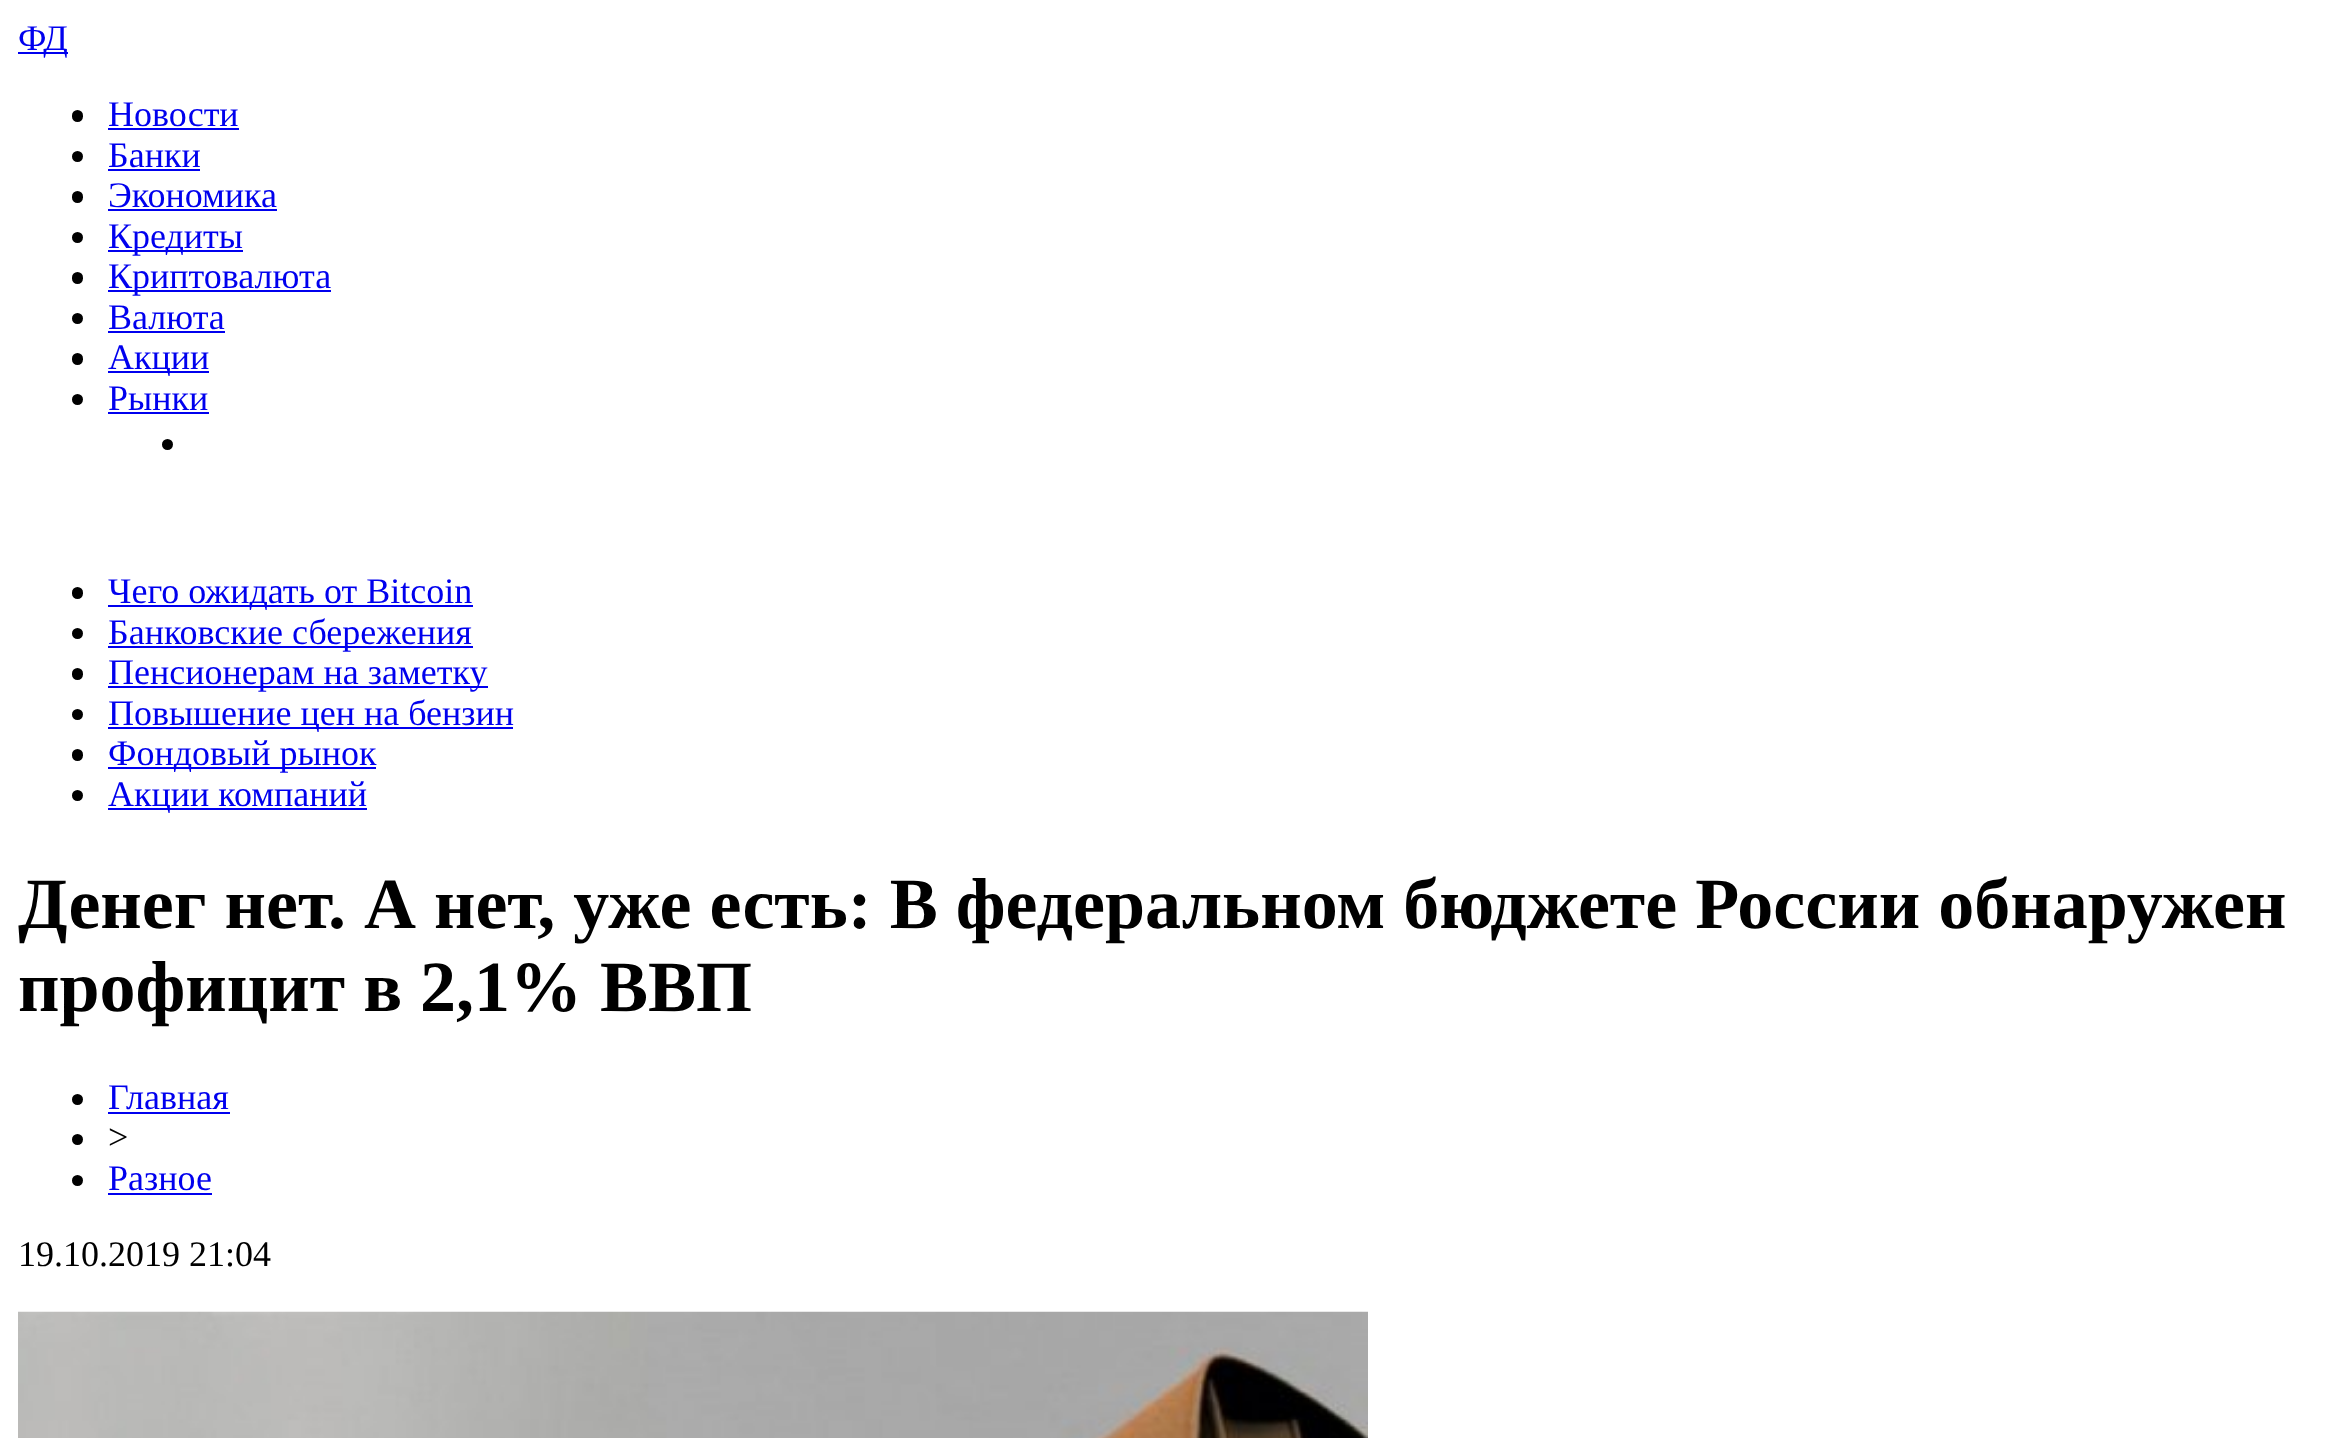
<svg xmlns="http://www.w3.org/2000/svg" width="2351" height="1438">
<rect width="100%" height="100%" fill="#fff"/>
<rect x="18" y="52" width="50" height="2" fill="#00e"/>
<text x="18" y="50" style="font-family:Liberation Serif;font-size:36px;fill:#00e">ФД</text>
<rect x="72" y="110" width="11" height="12" rx="5.5" fill="#000"/>
<text x="108" y="126" style="font-family:Liberation Serif;font-size:36px;fill:#00e">Новости</text>
<rect x="108" y="128" width="131" height="2" fill="#00e"/>
<circle cx="77.5" cy="156.5" r="5.5" fill="#000"/>
<text x="108" y="167" style="font-family:Liberation Serif;font-size:36px;fill:#00e">Банки</text>
<rect x="108" y="169" width="92" height="2" fill="#00e"/>
<rect x="72" y="191" width="11" height="12" rx="5.5" fill="#000"/>
<text x="108" y="207" style="font-family:Liberation Serif;font-size:36px;fill:#00e">Экономика</text>
<rect x="108" y="209" width="169" height="2" fill="#00e"/>
<circle cx="77.5" cy="237.5" r="5.5" fill="#000"/>
<rect x="108" y="250" width="135" height="2" fill="#00e"/>
<text x="108" y="248" style="font-family:Liberation Serif;font-size:36px;fill:#00e">Кредиты</text>
<rect x="72" y="272" width="11" height="12" rx="5.5" fill="#000"/>
<rect x="108" y="290" width="223" height="2" fill="#00e"/>
<text x="108" y="288" style="font-family:Liberation Serif;font-size:36px;fill:#00e">Криптовалюта</text>
<circle cx="77.5" cy="318.5" r="5.5" fill="#000"/>
<text x="108" y="329" style="font-family:Liberation Serif;font-size:36px;fill:#00e">Валюта</text>
<rect x="108" y="331" width="117" height="2" fill="#00e"/>
<rect x="72" y="353" width="11" height="12" rx="5.5" fill="#000"/>
<rect x="108" y="371" width="101" height="2" fill="#00e"/>
<text x="108" y="369" style="font-family:Liberation Serif;font-size:36px;fill:#00e">Акции</text>
<circle cx="77.5" cy="399.5" r="5.5" fill="#000"/>
<text x="108" y="410" style="font-family:Liberation Serif;font-size:36px;fill:#00e">Рынки</text>
<rect x="108" y="412" width="101" height="2" fill="#00e"/>
<circle cx="167.5" cy="444.5" r="5.5" fill="#000"/>
<rect x="72" y="587" width="11" height="12" rx="5.5" fill="#000"/>
<rect x="108" y="605" width="365" height="2" fill="#00e"/>
<text x="108" y="603" style="font-family:Liberation Serif;font-size:36px;fill:#00e">Чего ожидать от Bitcoin</text>
<circle cx="77.5" cy="633.5" r="5.5" fill="#000"/>
<rect x="108" y="646" width="365" height="2" fill="#00e"/>
<text x="108" y="644" style="font-family:Liberation Serif;font-size:36px;fill:#00e">Банковские сбережения</text>
<rect x="72" y="668" width="11" height="12" rx="5.5" fill="#000"/>
<rect x="108" y="686" width="380" height="2" fill="#00e"/>
<text x="108" y="684" style="font-family:Liberation Serif;font-size:36px;fill:#00e">Пенсионерам на заметку</text>
<circle cx="77.5" cy="714.5" r="5.5" fill="#000"/>
<rect x="108" y="727" width="405" height="2" fill="#00e"/>
<text x="108" y="725" style="font-family:Liberation Serif;font-size:36px;fill:#00e">Повышение цен на бензин</text>
<rect x="72" y="749" width="11" height="12" rx="5.5" fill="#000"/>
<rect x="108" y="767" width="268" height="2" fill="#00e"/>
<text x="108" y="765" style="font-family:Liberation Serif;font-size:36px;fill:#00e">Фондовый рынок</text>
<circle cx="77.5" cy="795.5" r="5.5" fill="#000"/>
<rect x="108" y="808" width="259" height="2" fill="#00e"/>
<text x="108" y="806" style="font-family:Liberation Serif;font-size:36px;fill:#00e">Акции компаний</text>
<text x="18" y="928" style="font-family:Liberation Serif;font-size:72px;font-weight:bold;fill:#000">Денег нет. А нет, уже есть: В федеральном бюджете России обнаружен</text>
<text x="18" y="1011" style="font-family:Liberation Serif;font-size:72px;font-weight:bold;fill:#000">профицит в 2,1% ВВП</text>
<circle cx="77.5" cy="1099.5" r="5.5" fill="#000"/>
<text x="108" y="1109" style="font-family:Liberation Serif;font-size:36px;fill:#00e">Главная</text>
<rect x="108" y="1112" width="122" height="2" fill="#00e"/>
<circle cx="77.5" cy="1139.5" r="5.5" fill="#000"/>
<text x="108" y="1149" style="font-family:Liberation Serif;font-size:36px;fill:#000">&gt;</text>
<circle cx="77.5" cy="1180.5" r="5.5" fill="#000"/>
<text x="108" y="1190" style="font-family:Liberation Serif;font-size:36px;fill:#00e">Разное</text>
<rect x="108" y="1193" width="104" height="2" fill="#00e"/>
<text x="18" y="1266" style="font-family:Liberation Serif;font-size:36px;fill:#000">19.10.2019 21:04</text>
<image x="18" y="1311" width="1350" height="127" href="media/1.png"/>
</svg>
